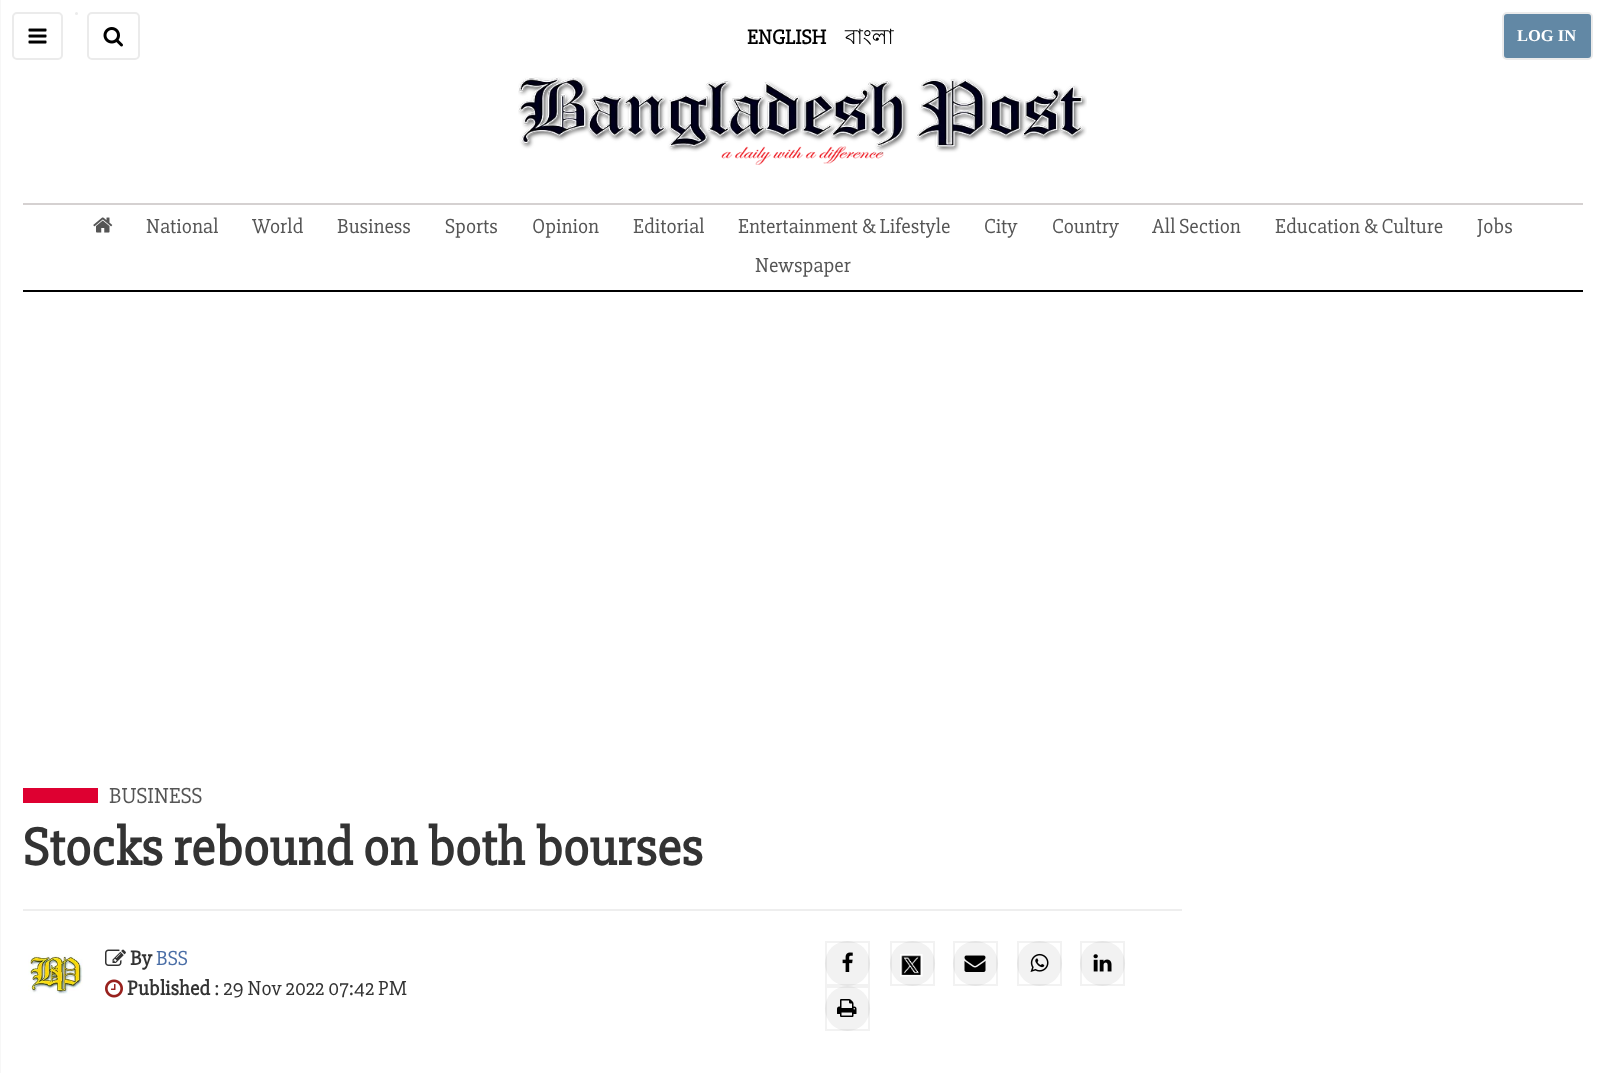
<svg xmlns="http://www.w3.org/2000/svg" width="1605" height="1073">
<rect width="100%" height="100%" fill="#fff"/>
<rect width="1" height="1073" fill="#f7f7f7"/>
<rect x="13" y="13" width="49" height="46" rx="4" fill="none" stroke="#ebebeb" stroke-width="2"/>
<image x="28" y="28" width="19" height="16" href="media/1.png"/>
<circle cx="76.5" cy="13.5" r="1.5" fill="#ebebeb"/>
<rect x="88" y="13" width="51" height="46" rx="4" fill="none" stroke="#ebebeb" stroke-width="2"/>
<image x="103" y="27" width="20" height="20" href="media/2.png"/>
<text x="747" y="44" style="font-family:'Slabo 27px';font-size:21px;font-weight:bold;fill:#000">ENGLISH</text>
<text x="845" y="44" style="font-family:Lohit Bengali;font-size:21px;fill:#000">বাংলা</text>
<rect x="1503" y="13" width="89" height="46" rx="4" fill="#6288a5" stroke="#ebebeb" stroke-width="2"/>
<text x="1517" y="41" style="font-family:Liberation Serif;font-size:16.5px;font-weight:bold;fill:#fff">LOG IN</text>
<image x="518" y="77" width="569" height="88" href="media/3.png"/>
<rect x="23" y="203" width="1560" height="2" fill="#d5d1d1"/>
<rect x="23" y="290" width="1560" height="2" fill="#000"/>
<image x="93" y="217" width="20" height="16" href="media/4.png"/>
<text x="146" y="233" style="font-family:'Slabo 27px';font-size:21px;fill:#555">National</text>
<text x="252" y="233" style="font-family:'Slabo 27px';font-size:21px;fill:#555">World</text>
<text x="337" y="233" style="font-family:'Slabo 27px';font-size:21px;fill:#555">Business</text>
<text x="445" y="233" style="font-family:'Slabo 27px';font-size:21px;fill:#555">Sports</text>
<text x="532" y="233" style="font-family:'Slabo 27px';font-size:21px;fill:#555">Opinion</text>
<text x="633" y="233" style="font-family:'Slabo 27px';font-size:21px;fill:#555">Editorial</text>
<text x="738" y="233" style="font-family:'Slabo 27px';font-size:21px;fill:#555">Entertainment &amp; Lifestyle</text>
<text x="984" y="233" style="font-family:'Slabo 27px';font-size:21px;fill:#555">City</text>
<text x="1052" y="233" style="font-family:'Slabo 27px';font-size:21px;fill:#555">Country</text>
<text x="1152" y="233" style="font-family:'Slabo 27px';font-size:21px;fill:#555">All Section</text>
<text x="1275" y="233" style="font-family:'Slabo 27px';font-size:21px;fill:#555">Education &amp; Culture</text>
<text x="1477" y="233" style="font-family:'Slabo 27px';font-size:21px;fill:#555">Jobs</text>
<text x="755" y="272" style="font-family:'Slabo 27px';font-size:21px;fill:#555">Newspaper</text>
<rect x="23" y="788" width="75" height="15" fill="#de0031"/>
<text x="109" y="803" style="font-family:'Slabo 27px';font-size:22.5px;fill:#555">BUSINESS</text>
<text x="23" y="865" style="font-family:'Slabo 27px';font-size:54px;font-weight:bold;fill:#333">Stocks rebound on both bourses</text>
<rect x="23" y="909" width="1159" height="2" fill="#eee"/>
<image x="28" y="955" width="55" height="39" href="media/5.png"/>
<image x="105" y="949" width="21" height="17" href="media/6.png"/>
<text x="130" y="965" style="font-family:'Slabo 27px';font-size:21px;font-weight:bold;fill:#333">By</text>
<text x="156" y="965" style="font-family:'Slabo 27px';font-size:21px;fill:#496da6">BSS</text>
<image x="105" y="979" width="18" height="19" href="media/7.png"/>
<text x="127" y="995" style="font-family:'Slabo 27px';font-size:21px;font-weight:bold;fill:#333">Published</text>
<text x="214" y="995" style="font-family:'Slabo 27px';font-size:21px;fill:#333">: 29 Nov 2022 07:42 PM</text>
<circle cx="847.5" cy="963.5" r="22.5" fill="#f2f2f2"/>
<rect x="826" y="942" width="43" height="43" fill="none" stroke="#0000000d" stroke-width="2"/>
<image x="842" y="952" width="11" height="20" href="media/8.png"/>
<circle cx="912.5" cy="963.5" r="22.5" fill="#f2f2f2"/>
<rect x="891" y="942" width="43" height="43" fill="none" stroke="#0000000d" stroke-width="2"/>
<image x="900" y="954" width="23" height="23" href="media/9.png"/>
<circle cx="975.5" cy="963.5" r="22.5" fill="#f2f2f2"/>
<rect x="954" y="942" width="43" height="43" fill="none" stroke="#0000000d" stroke-width="2"/>
<image x="964" y="955" width="22" height="17" href="media/10.png"/>
<circle cx="1039.5" cy="963.5" r="22.5" fill="#f2f2f2"/>
<rect x="1018" y="942" width="43" height="43" fill="none" stroke="#0000000d" stroke-width="2"/>
<image x="1030" y="953" width="19" height="19" href="media/11.png"/>
<circle cx="1102.5" cy="963.5" r="22.5" fill="#f2f2f2"/>
<rect x="1081" y="942" width="43" height="43" fill="none" stroke="#0000000d" stroke-width="2"/>
<image x="1093" y="954" width="19" height="18" href="media/12.png"/>
<circle cx="847.5" cy="1008.5" r="22.5" fill="#f2f2f2"/>
<rect x="826" y="987" width="43" height="43" fill="none" stroke="#0000000d" stroke-width="2"/>
<image x="837" y="999" width="20" height="18" href="media/13.png"/>
</svg>
